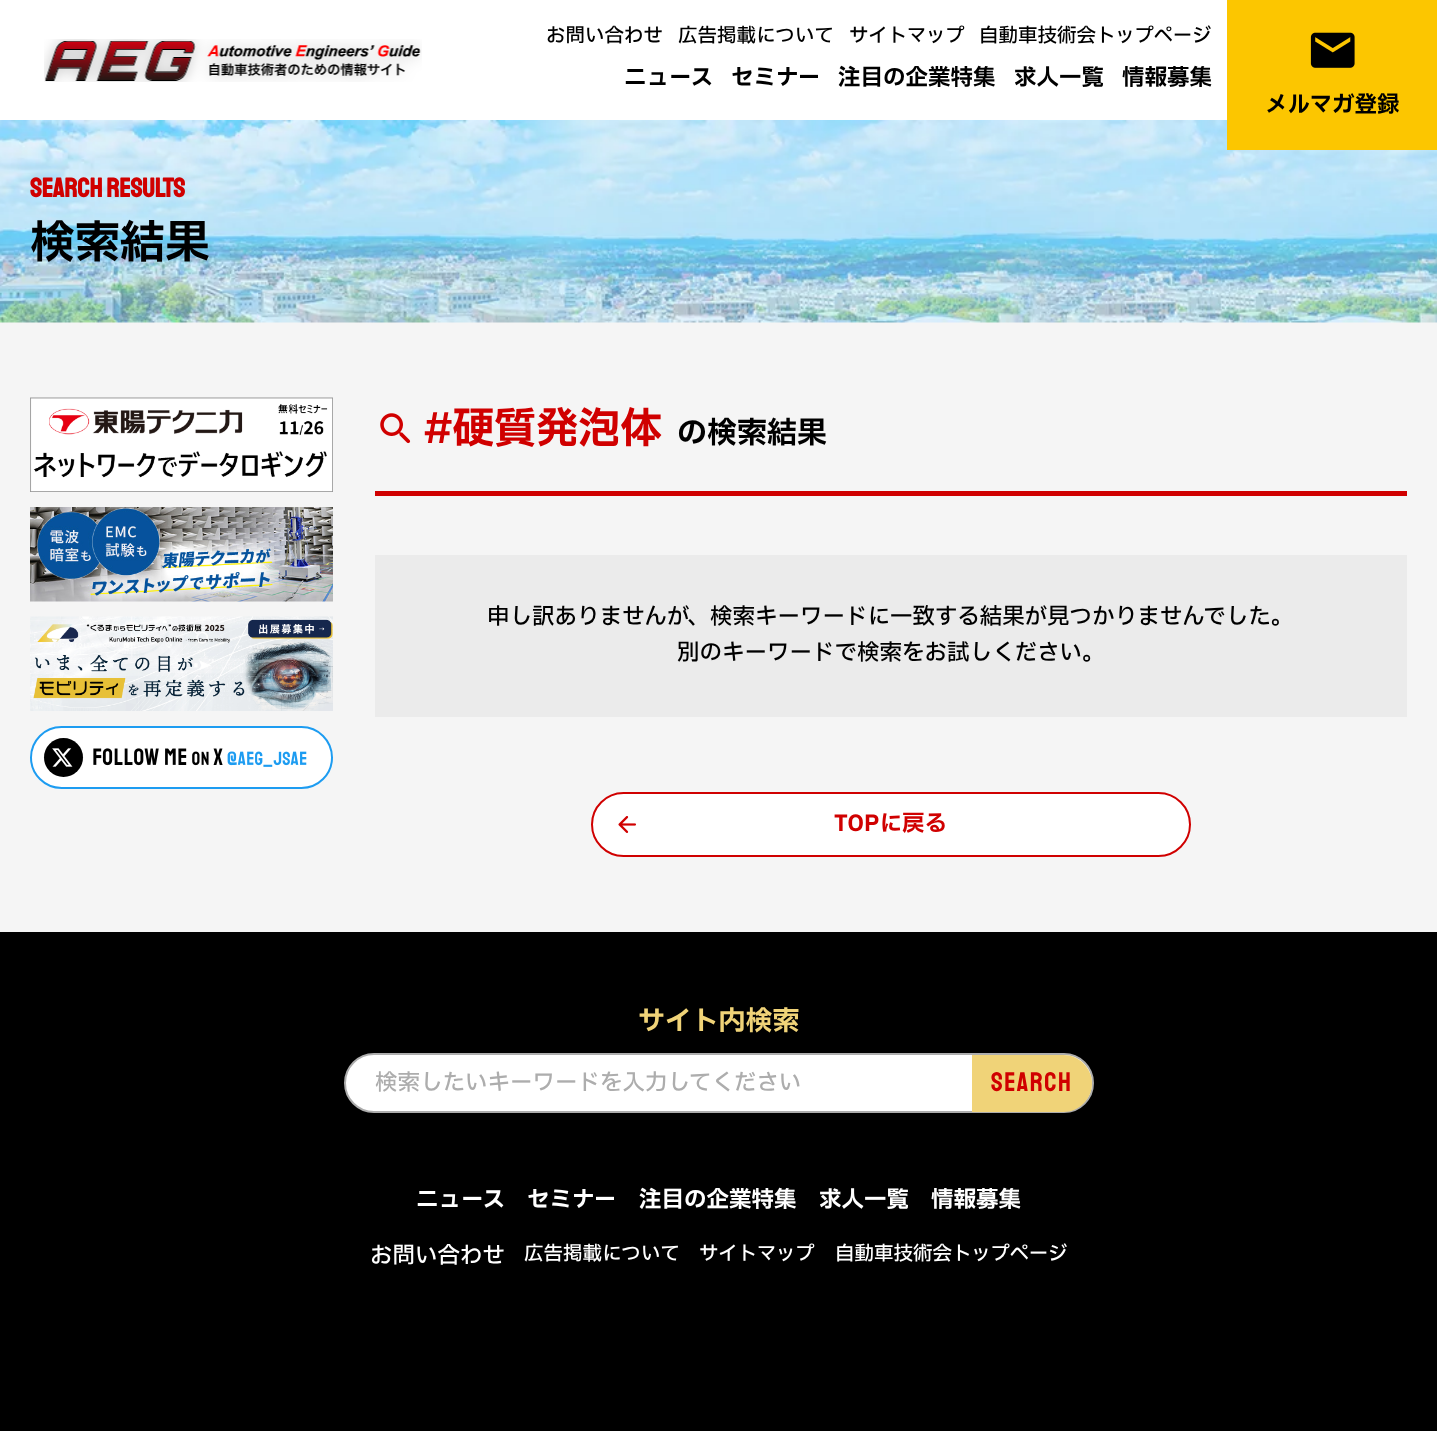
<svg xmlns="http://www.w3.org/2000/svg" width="1437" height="1431">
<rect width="100%" height="100%" fill="#f5f5f5"/>
<rect width="1227" height="120" fill="#fff"/>
<image x="44" y="39" width="378" height="43" href="media/1.png"/>
<text x="546" y="42" style="font-family:IBM Plex Sans JP;font-size:19.5px;font-weight:500;fill:#000">お問い合わせ</text>
<text x="678" y="42" style="font-family:IBM Plex Sans JP;font-size:19.5px;font-weight:500;fill:#000">広告掲載について</text>
<text x="849" y="42" style="font-family:IBM Plex Sans JP;font-size:19.5px;font-weight:500;fill:#000">サイトマップ</text>
<text x="979" y="42" style="font-family:IBM Plex Sans JP;font-size:19.5px;font-weight:500;fill:#000">自動車技術会トップページ</text>
<text x="624" y="85" style="font-family:IBM Plex Sans JP;font-size:22.5px;font-weight:bold;fill:#000">ニュース</text>
<text x="731" y="85" style="font-family:IBM Plex Sans JP;font-size:22.5px;font-weight:bold;fill:#000">セミナー</text>
<text x="838" y="85" style="font-family:IBM Plex Sans JP;font-size:22.5px;font-weight:bold;fill:#000">注目の企業特集</text>
<text x="1014" y="85" style="font-family:IBM Plex Sans JP;font-size:22.5px;font-weight:bold;fill:#000">求人一覧</text>
<text x="1122" y="85" style="font-family:IBM Plex Sans JP;font-size:22.5px;font-weight:bold;fill:#000">情報募集</text>
<image x="0" y="120" width="1437" height="203" href="media/3.png"/>
<rect x="1227" width="210" height="150" fill="#fcc600"/>
<image x="1310" y="32" width="45" height="36" href="media/2.png"/>
<text x="1265" y="112" style="font-family:IBM Plex Sans JP;font-size:22.5px;font-weight:bold;fill:#000">メルマガ登録</text>
<text x="30" y="197" style="font-family:Staatliches;font-size:27px;font-weight:bold;fill:#d00000">SEARCH RESULTS</text>
<text x="30" y="258" style="font-family:IBM Plex Sans JP;font-size:45px;font-weight:bold;fill:#000">検索結果</text>
<image x="30" y="397" width="303" height="95" href="media/4.png"/>
<image x="30" y="507" width="303" height="95" href="media/5.png"/>
<image x="30" y="616" width="303" height="95" href="media/6.png"/>
<rect x="31" y="727" width="301" height="61" rx="30.5" fill="#fff" stroke="#1d9cf1" stroke-width="2"/>
<circle cx="63.5" cy="757.5" r="19.5" fill="#000"/>
<image x="52" y="748" width="21" height="19" href="media/7.png"/>
<image x="93" y="748" width="214" height="19" href="media/8.png"/>
<rect x="375" y="491" width="1032" height="5" fill="#d00000"/>
<image x="380" y="413" width="31" height="31" href="media/9.png"/>
<text x="424" y="443" style="font-family:IBM Plex Sans JP;font-size:42px;font-weight:bold;fill:#d00000">#硬質発泡体</text>
<text x="677" y="443" style="font-family:IBM Plex Sans JP;font-size:30px;font-weight:bold;fill:#000">の検索結果</text>
<rect x="375" y="555" width="1032" height="162" fill="#ebebeb"/>
<text x="487" y="624" style="font-family:IBM Plex Sans JP;font-size:22.5px;font-weight:500;fill:#000">申し訳ありませんが、検索キーワードに一致する結果が見つかりませんでした。</text>
<text x="677" y="660" style="font-family:IBM Plex Sans JP;font-size:22.5px;font-weight:500;fill:#000">別のキーワードで検索をお試しください。</text>
<rect x="592" y="793" width="598" height="63" rx="31.5" fill="#fff" stroke="#d00000" stroke-width="2"/>
<image x="618" y="816" width="18" height="17" href="media/10.png"/>
<text x="834" y="831" style="font-family:IBM Plex Sans JP;font-size:22.5px;font-weight:bold;fill:#d00000">TOPに戻る</text>
<rect y="932" width="1437" height="499" fill="#000"/>
<text x="638" y="1030" style="font-family:IBM Plex Sans JP;font-size:27px;font-weight:bold;fill:#f0d378">サイト内検索</text>
<rect x="345" y="1054" width="748" height="58" rx="29" fill="#fff" stroke="#adadad" stroke-width="2"/>
<text x="375" y="1090" style="font-family:IBM Plex Sans JP;font-size:22.5px;font-weight:500;fill:#adadad">検索したいキーワードを入力してください</text>
<path d="M972 1055h91.5c15.5 0 28.5 13 28.5 28.5c0 15.5-13 28.5-28.5 28.5h-91.5z" fill="#f0d378"/>
<text x="991" y="1091" style="font-family:Staatliches;font-size:27px;letter-spacing:1.5px;fill:#d00000">Search</text>
<text x="416" y="1207" style="font-family:IBM Plex Sans JP;font-size:22.5px;font-weight:bold;fill:#fff">ニュース</text>
<text x="527" y="1207" style="font-family:IBM Plex Sans JP;font-size:22.5px;font-weight:bold;fill:#fff">セミナー</text>
<text x="639" y="1207" style="font-family:IBM Plex Sans JP;font-size:22.5px;font-weight:bold;fill:#fff">注目の企業特集</text>
<text x="819" y="1207" style="font-family:IBM Plex Sans JP;font-size:22.5px;font-weight:bold;fill:#fff">求人一覧</text>
<text x="931" y="1207" style="font-family:IBM Plex Sans JP;font-size:22.5px;font-weight:bold;fill:#fff">情報募集</text>
<text x="370" y="1263" style="font-family:IBM Plex Sans JP;font-size:22.5px;font-weight:500;fill:#fff">お問い合わせ</text>
<text x="524" y="1260" style="font-family:IBM Plex Sans JP;font-size:19.5px;font-weight:500;fill:#fff">広告掲載について</text>
<text x="699" y="1260" style="font-family:IBM Plex Sans JP;font-size:19.5px;font-weight:500;fill:#fff">サイトマップ</text>
<text x="835" y="1260" style="font-family:IBM Plex Sans JP;font-size:19.5px;font-weight:500;fill:#fff">自動車技術会トップページ</text>
</svg>
